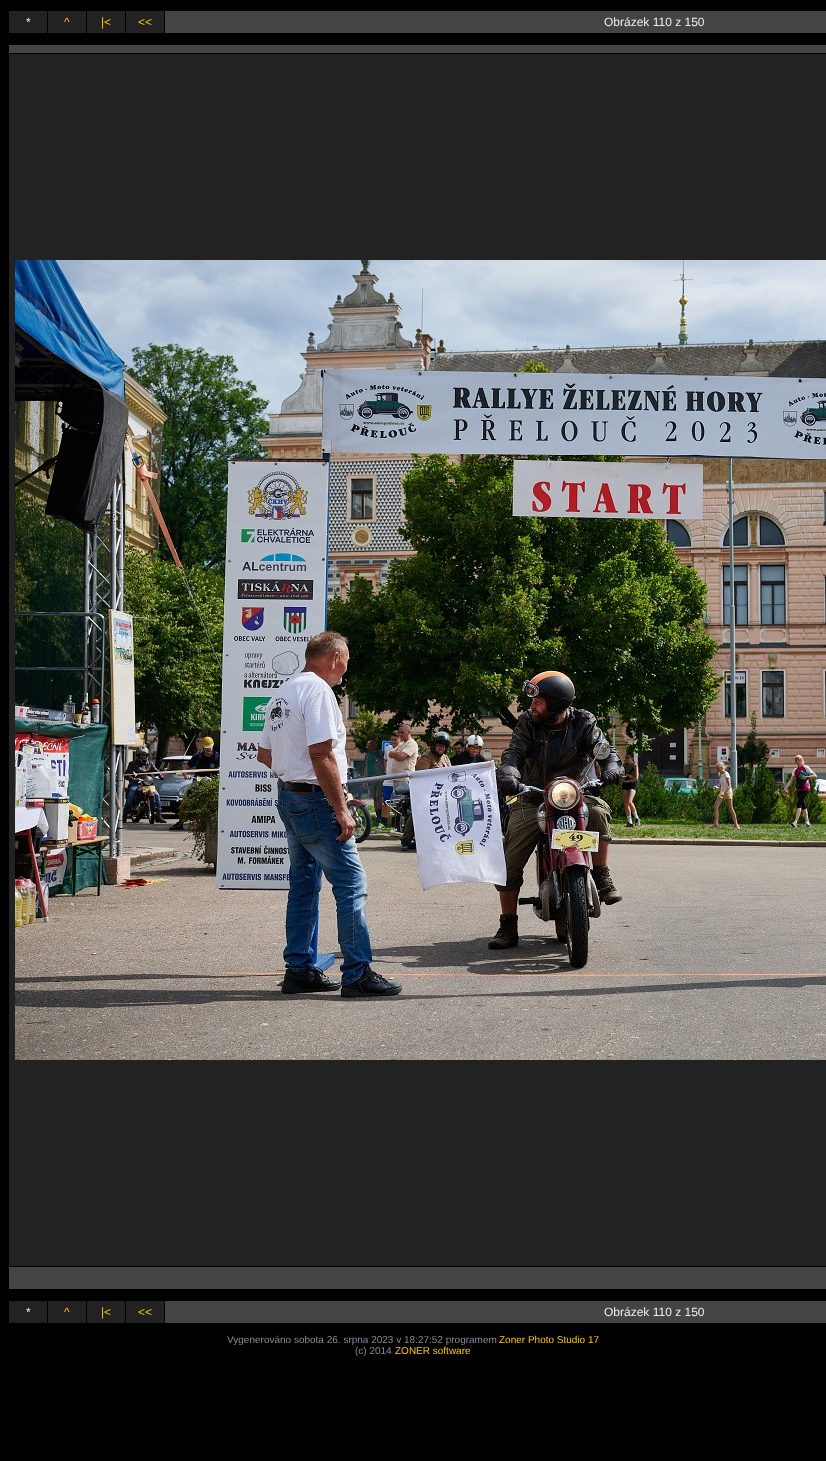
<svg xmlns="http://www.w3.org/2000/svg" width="826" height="1461">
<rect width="100%" height="100%" fill="#000"/>
<rect x="9" y="11" width="38" height="22" fill="#222"/>
<text x="26" y="26" style="font-family:Liberation Sans;font-size:12px;fill:#eee">*</text>
<rect x="48" y="11" width="38" height="22" fill="#222"/>
<text x="64" y="26" style="font-family:Liberation Sans;font-size:12px;fill:#ffc513">^</text>
<rect x="87" y="11" width="38" height="22" fill="#222"/>
<text x="101" y="26" style="font-family:Liberation Sans;font-size:12px;fill:#ffc513">|&lt;</text>
<rect x="126" y="11" width="38" height="22" fill="#222"/>
<text x="138" y="26" style="font-family:Liberation Sans;font-size:12px;fill:#ffc513">&lt;&lt;</text>
<rect x="165" y="11" width="661" height="22" fill="#444"/>
<text x="604" y="26" style="font-family:Liberation Sans;font-size:12px;fill:#eee">Obrázek 110 z 150</text>
<rect x="9" y="45" width="817" height="8" fill="#444"/>
<rect x="9" y="54" width="817" height="1212" fill="#222"/>
<image x="15" y="260" width="811" height="800" href="media/1.png"/>
<rect x="9" y="1267" width="817" height="22" fill="#444"/>
<rect x="9" y="1301" width="38" height="22" fill="#222"/>
<text x="26" y="1316" style="font-family:Liberation Sans;font-size:12px;fill:#eee">*</text>
<rect x="48" y="1301" width="38" height="22" fill="#222"/>
<text x="64" y="1316" style="font-family:Liberation Sans;font-size:12px;fill:#ffc513">^</text>
<rect x="87" y="1301" width="38" height="22" fill="#222"/>
<text x="101" y="1316" style="font-family:Liberation Sans;font-size:12px;fill:#ffc513">|&lt;</text>
<rect x="126" y="1301" width="38" height="22" fill="#222"/>
<text x="138" y="1316" style="font-family:Liberation Sans;font-size:12px;fill:#ffc513">&lt;&lt;</text>
<rect x="165" y="1301" width="661" height="22" fill="#444"/>
<text x="604" y="1316" style="font-family:Liberation Sans;font-size:12px;fill:#eee">Obrázek 110 z 150</text>
<text x="227" y="1343" style="font-family:Liberation Sans;font-size:10px;fill:#889">Vygenerováno sobota 26. srpna 2023 v 18:27:52 programem</text>
<text x="499" y="1343" style="font-family:Liberation Sans;font-size:10px;fill:#ffc513">Zoner Photo Studio 17</text>
<text x="355" y="1354" style="font-family:Liberation Sans;font-size:10px;fill:#889">(c) 2014</text>
<text x="395" y="1354" style="font-family:Liberation Sans;font-size:10px;fill:#ffc513">ZONER software</text>
</svg>
